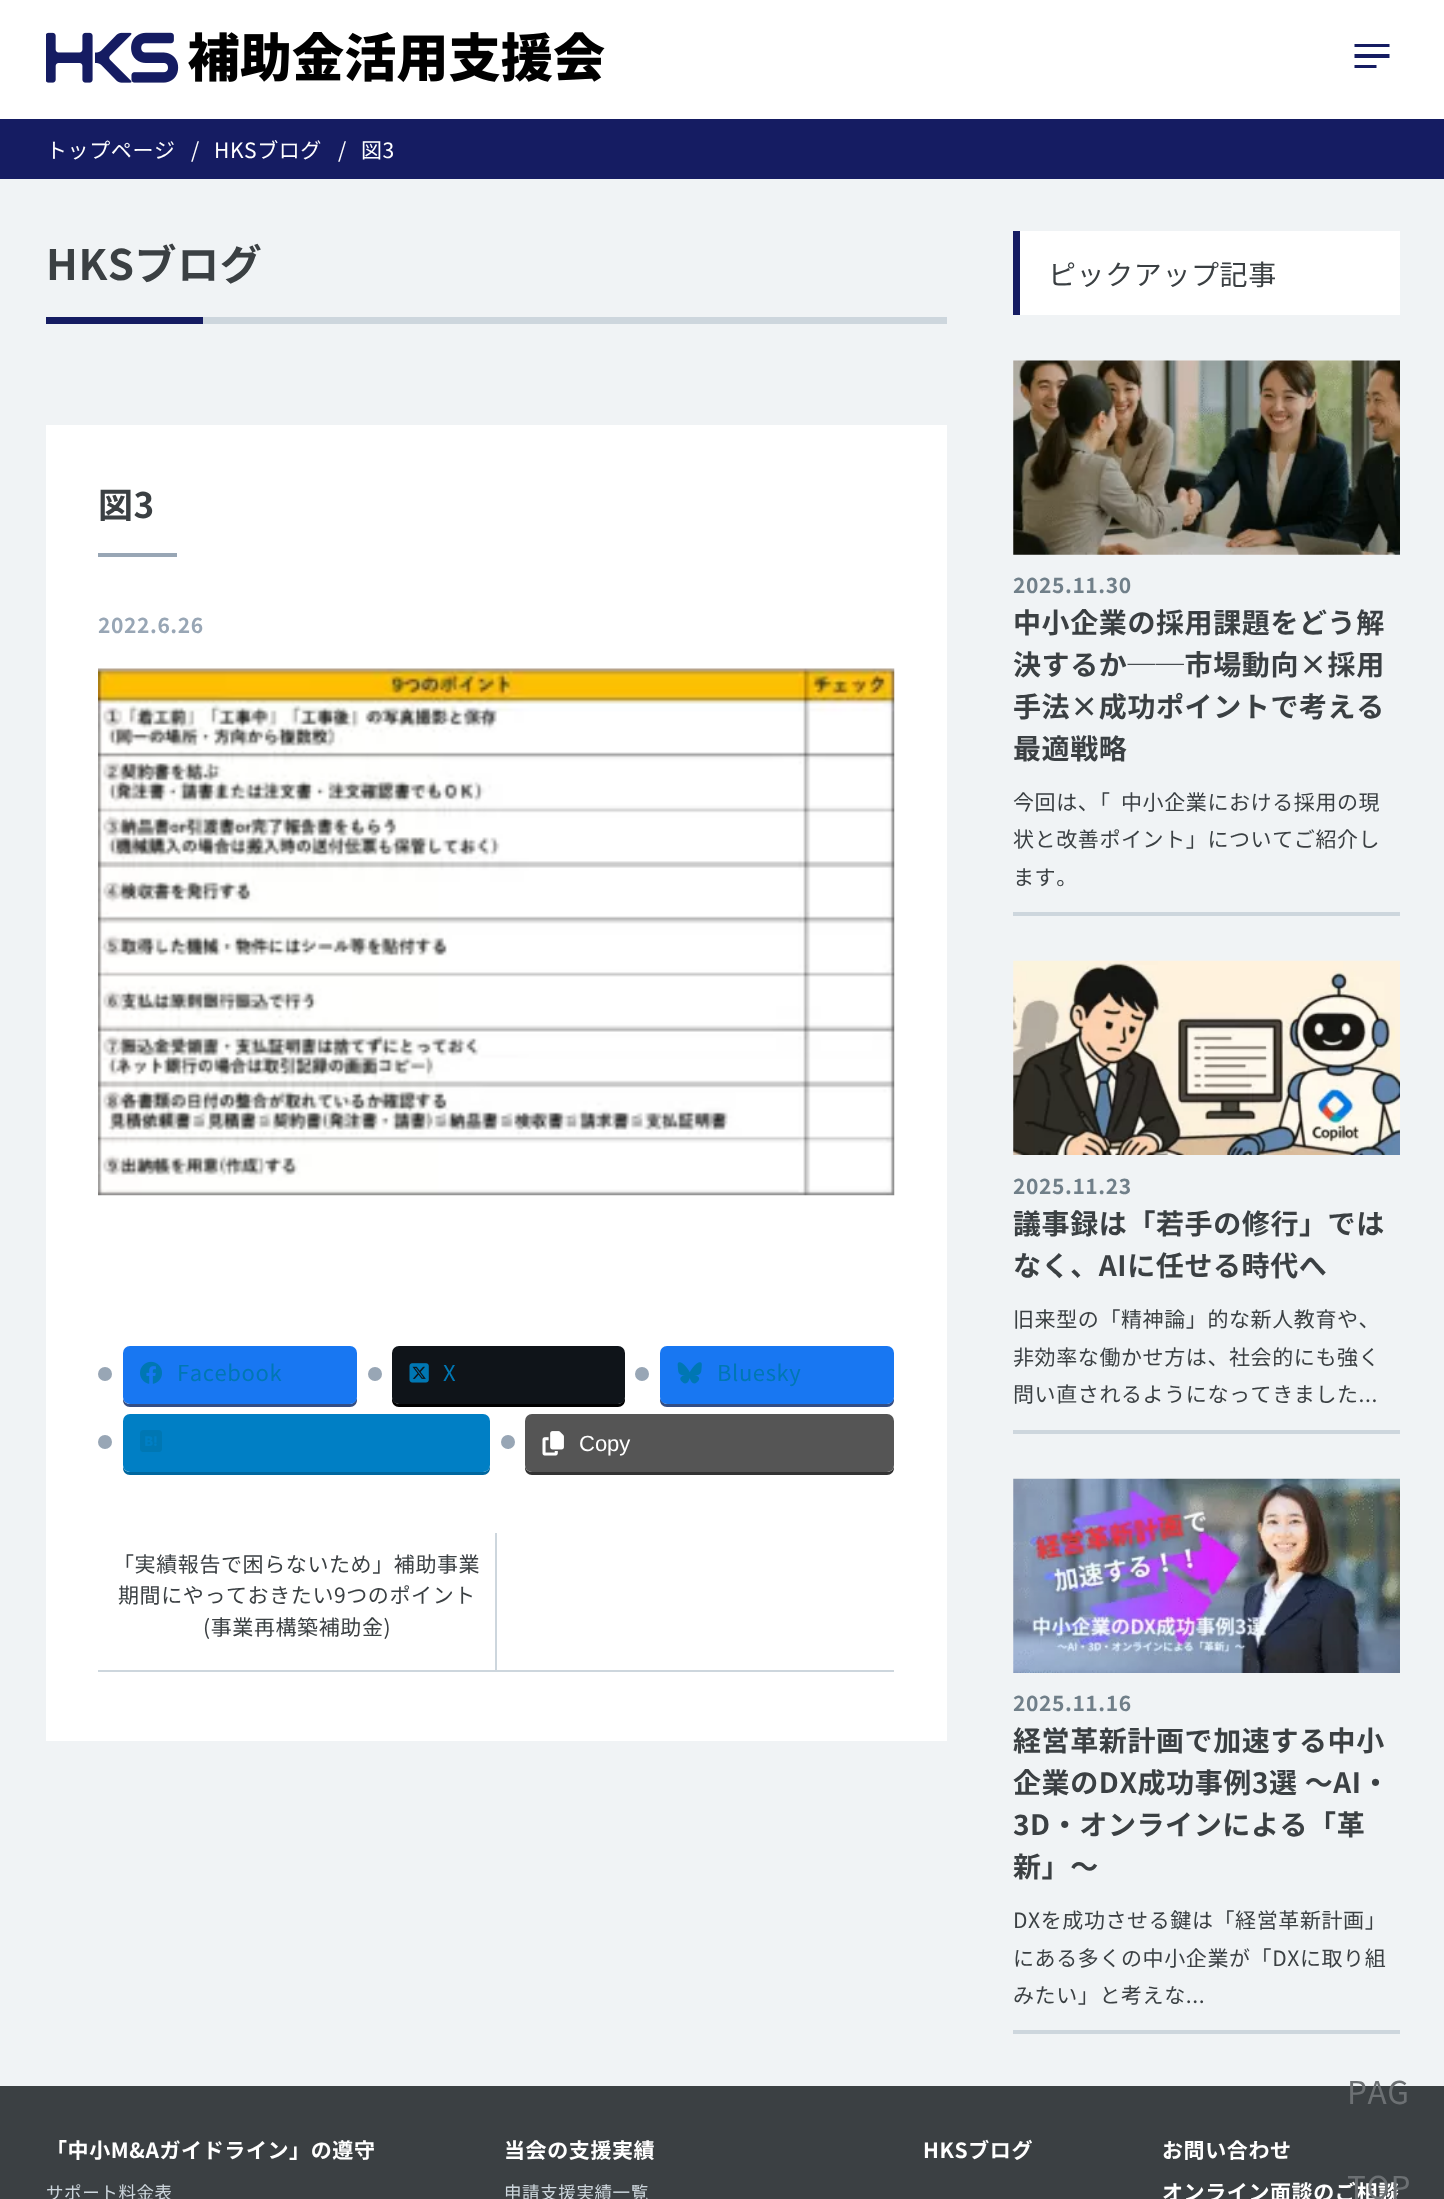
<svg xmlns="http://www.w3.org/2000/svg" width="1444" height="2199">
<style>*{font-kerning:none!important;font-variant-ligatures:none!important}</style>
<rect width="100%" height="100%" fill="#fff"/>
<image x="46" y="32" width="559" height="51" href="media/1.png"/>
<path d="M1354.5 68v-3h22v3zm0-10v-4h35v4zm0-11v-3h35v3z" fill="#151c62"/>
<rect y="119" width="1444" height="60" fill="#151c62"/>
<text x="46" y="158" style="font-family:Noto Sans JP;font-size:21px;letter-spacing:0.6px;fill:#fff">トップページ</text>
<text x="191" y="158" style="font-family:Noto Sans JP;font-size:21px;letter-spacing:0.6px;fill:#fff">/</text>
<text x="214" y="158" style="font-family:Noto Sans JP;font-size:21px;letter-spacing:0.6px;fill:#fff">HKSブログ</text>
<text x="338" y="158" style="font-family:Noto Sans JP;font-size:21px;letter-spacing:0.6px;fill:#fff">/</text>
<text x="361" y="158" style="font-family:Noto Sans JP;font-size:21px;letter-spacing:0.6px;fill:#fff">図3</text>
<rect y="179" width="1444" height="1907" fill="#f0f3f5"/>
<rect x="203" y="317" width="744" height="7" fill="#cdd6dd"/>
<text x="46" y="280" style="font-family:Noto Sans JP;font-size:42px;font-weight:bold;letter-spacing:0.6px;fill:#3b4043">HKSブログ</text>
<rect x="46" y="317" width="157" height="7" fill="#151c62"/>
<rect x="46" y="425" width="901" height="1316" fill="#fff"/>
<text x="98" y="518" style="font-family:Noto Sans JP;font-size:35px;font-weight:bold;letter-spacing:0.6px;fill:#3b4043">図3</text>
<rect x="98" y="553" width="79" height="4" fill="#98a6b5"/>
<text x="98" y="633" style="font-family:Noto Sans JP;font-size:21px;font-weight:bold;letter-spacing:0.6px;fill:#98a6b5">2022.6.26</text>
<image x="98" y="668" width="797" height="528" href="media/2.png"/>
<circle cx="105" cy="1374" r="7" fill="#98a6b5"/>
<path d="M123 1399v1c0 4 3 7 7 7h220c4 0 7-3 7-7v-4c0 4-3 8-7 8h-220c-3 0-6-2-7-5z" fill="#344e84"/>
<rect x="123" y="1346" width="234" height="58" rx="7" fill="#1877f2"/>
<image x="140" y="1361" width="22" height="23" href="media/3.png"/>
<text x="177" y="1381" style="font-family:Noto Sans JP;font-size:22px;letter-spacing:0.6px;fill:#0077b3">Facebook</text>
<circle cx="375" cy="1374" r="7" fill="#98a6b5"/>
<path d="M392 1396v4c0 4 3 7 7 7h219c4 0 7-3 7-7v-46v42c0 4-3 8-7 8h-219c-4 0-7-4-7-8z" fill="#000"/>
<rect x="392" y="1346" width="233" height="58" rx="7" fill="#0f1419"/>
<image x="409" y="1363" width="20" height="20" href="media/4.png"/>
<text x="443" y="1381" style="font-family:Noto Sans JP;font-size:22px;letter-spacing:0.6px;fill:#0077b3">X</text>
<circle cx="642" cy="1374" r="7" fill="#98a6b5"/>
<path d="M660 1398v2c0 4 3 7 7 7h220c4 0 7-3 7-7v-2c-1 3-4 6-7 6h-220c-3 0-6-3-7-6z" fill="#344e84"/>
<rect x="660" y="1346" width="234" height="58" rx="7" fill="#1877f2"/>
<image x="677" y="1362" width="25" height="22" href="media/5.png"/>
<text x="717" y="1381" style="font-family:Noto Sans JP;font-size:22px;letter-spacing:0.6px;fill:#0077b3">Bluesky</text>
<circle cx="105" cy="1442" r="7" fill="#98a6b5"/>
<path d="M123 1467v1c0 4 3 7 7 7h353c4 0 7-3 7-7v-3c0 4-3 7-7 7h-353c-3 0-6-2-7-5z" fill="#00679f"/>
<rect x="123" y="1414" width="367" height="58" rx="7" fill="#007fc5"/>
<image x="140" y="1430" width="22" height="22" href="media/6.png"/>
<circle cx="508" cy="1442" r="7" fill="#98a6b5"/>
<path d="M525 1465v3c0 4 3 7 7 7h355c4 0 7-3 7-7v-1c-1 3-4 5-7 5h-355c-4 0-7-3-7-7z" fill="#333"/>
<rect x="525" y="1414" width="369" height="58" rx="7" fill="#555"/>
<image x="542" y="1431" width="22" height="25" href="media/7.png"/>
<text x="579" y="1451" style="font-family:Liberation Sans;font-size:22px;fill:#fff">Copy</text>
<rect x="98" y="1670" width="796" height="2" fill="#cdd6dd"/>
<text x="113" y="1572" style="font-family:Noto Sans JP;font-size:21px;letter-spacing:0.6px;fill:#3b4043">「実績報告で困らないため」補助事業</text>
<text x="118" y="1603" style="font-family:Noto Sans JP;font-size:21px;letter-spacing:0.6px;fill:#3b4043">期間にやっておきたい9つのポイント</text>
<text x="203" y="1635" style="font-family:Noto Sans JP;font-size:21px;letter-spacing:0.6px;fill:#3b4043">(事業再構築補助金)</text>
<rect x="495" y="1533" width="2" height="138" fill="#cdd6dd"/>
<rect x="1020" y="231" width="380" height="84" fill="#fff"/>
<rect x="1013" y="231" width="7" height="84" fill="#151c62"/>
<text x="1048" y="285" style="font-family:Noto Sans JP;font-size:28px;letter-spacing:0.6px;fill:#3b4043">ピックアップ記事</text>
<rect x="1013" y="912" width="387" height="4" fill="#cdd6dd"/>
<image x="1013" y="360" width="387" height="195" href="media/8.png"/>
<text x="1013" y="593" style="font-family:Noto Sans JP;font-size:21px;font-weight:bold;letter-spacing:0.6px;fill:#707f89">2025.11.30</text>
<text x="1013" y="633" style="font-family:Noto Sans JP;font-size:28px;font-weight:bold;letter-spacing:0.6px;fill:#3b4043">中小企業の採用課題をどう解</text>
<text x="1013" y="675" style="font-family:Noto Sans JP;font-size:28px;font-weight:bold;letter-spacing:0.6px;fill:#3b4043">決するか──市場動向×採用</text>
<text x="1013" y="717" style="font-family:Noto Sans JP;font-size:28px;font-weight:bold;letter-spacing:0.6px;fill:#3b4043">手法×成功ポイントで考える</text>
<text x="1013" y="759" style="font-family:Noto Sans JP;font-size:28px;font-weight:bold;letter-spacing:0.6px;fill:#3b4043">最適戦略</text>
<text x="1013" y="810" style="font-family:Noto Sans JP;font-size:21px;letter-spacing:0.6px;fill:#3b4043">今回は、「</text>
<text x="1121" y="810" style="font-family:Noto Sans JP;font-size:21px;letter-spacing:0.6px;fill:#3b4043">中小企業における採用の現</text>
<text x="1013" y="847" style="font-family:Noto Sans JP;font-size:21px;letter-spacing:0.6px;fill:#3b4043">状と改善ポイント」についてご紹介し</text>
<text x="1013" y="885" style="font-family:Noto Sans JP;font-size:21px;letter-spacing:0.6px;fill:#3b4043">ます。</text>
<rect x="1013" y="1430" width="387" height="4" fill="#cdd6dd"/>
<image x="1013" y="960" width="387" height="195" href="media/9.png"/>
<text x="1013" y="1194" style="font-family:Noto Sans JP;font-size:21px;font-weight:bold;letter-spacing:0.6px;fill:#707f89">2025.11.23</text>
<text x="1013" y="1234" style="font-family:Noto Sans JP;font-size:28px;font-weight:bold;letter-spacing:0.6px;fill:#3b4043">議事録は「若手の修行」では</text>
<text x="1013" y="1276" style="font-family:Noto Sans JP;font-size:28px;font-weight:bold;letter-spacing:0.6px;fill:#3b4043">なく、AIに任せる時代へ</text>
<text x="1013" y="1327" style="font-family:Noto Sans JP;font-size:21px;letter-spacing:0.6px;fill:#3b4043">旧来型の「精神論」的な新人教育や、</text>
<text x="1013" y="1365" style="font-family:Noto Sans JP;font-size:21px;letter-spacing:0.6px;fill:#3b4043">非効率な働かせ方は、社会的にも強く</text>
<text x="1013" y="1402" style="font-family:Noto Sans JP;font-size:21px;letter-spacing:0.6px;fill:#3b4043">問い直されるようになってきました...</text>
<rect x="1013" y="2030" width="387" height="4" fill="#cdd6dd"/>
<image x="1013" y="1478" width="387" height="195" href="media/10.png"/>
<text x="1013" y="1711" style="font-family:Noto Sans JP;font-size:21px;font-weight:bold;letter-spacing:0.6px;fill:#707f89">2025.11.16</text>
<text x="1013" y="1751" style="font-family:Noto Sans JP;font-size:28px;font-weight:bold;letter-spacing:0.6px;fill:#3b4043">経営革新計画で加速する中小</text>
<text x="1013" y="1793" style="font-family:Noto Sans JP;font-size:28px;font-weight:bold;letter-spacing:0.6px;fill:#3b4043">企業のDX成功事例3選 ～AI・</text>
<text x="1013" y="1835" style="font-family:Noto Sans JP;font-size:28px;font-weight:bold;letter-spacing:0.6px;fill:#3b4043">3D・オンラインによる「革</text>
<text x="1013" y="1877" style="font-family:Noto Sans JP;font-size:28px;font-weight:bold;letter-spacing:0.6px;fill:#3b4043">新」～</text>
<text x="1013" y="1928" style="font-family:Noto Sans JP;font-size:21px;letter-spacing:0.6px;fill:#3b4043">DXを成功させる鍵は「経営革新計画」</text>
<text x="1013" y="1966" style="font-family:Noto Sans JP;font-size:21px;letter-spacing:0.6px;fill:#3b4043">にある多くの中小企業が「DXに取り組</text>
<text x="1013" y="2003" style="font-family:Noto Sans JP;font-size:21px;letter-spacing:0.6px;fill:#3b4043">みたい」と考えな...</text>
<rect y="2086" width="1444" height="113" fill="#3b4043"/>
<text x="1347" y="2104" style="font-family:Noto Sans JP;font-size:31.5px;letter-spacing:0.6px;fill:#6c7073">PAG</text>
<text x="1162" y="2200" style="font-family:Noto Sans JP;font-size:21px;font-weight:bold;letter-spacing:0.6px;fill:#fff">オンライン面談のご相談</text>
<text x="1347" y="2199" style="font-family:Noto Sans JP;font-size:31.5px;letter-spacing:0.6px;fill:#6c7073">TOP</text>
<text x="46" y="2158" style="font-family:Noto Sans JP;font-size:21px;font-weight:bold;letter-spacing:0.6px;fill:#fff">「中小M&amp;Aガイドライン」の遵守</text>
<text x="46" y="2199" style="font-family:Noto Sans JP;font-size:17.5px;letter-spacing:0.6px;fill:#cdd6dd">サポート料金表</text>
<text x="504" y="2158" style="font-family:Noto Sans JP;font-size:21px;font-weight:bold;letter-spacing:0.6px;fill:#fff">当会の支援実績</text>
<text x="504" y="2199" style="font-family:Noto Sans JP;font-size:17.5px;letter-spacing:0.6px;fill:#cdd6dd">申請支援実績一覧</text>
<text x="923" y="2158" style="font-family:Noto Sans JP;font-size:21px;font-weight:bold;letter-spacing:0.6px;fill:#fff">HKSブログ</text>
<text x="1162" y="2158" style="font-family:Noto Sans JP;font-size:21px;font-weight:bold;letter-spacing:0.6px;fill:#fff">お問い合わせ</text>
</svg>
